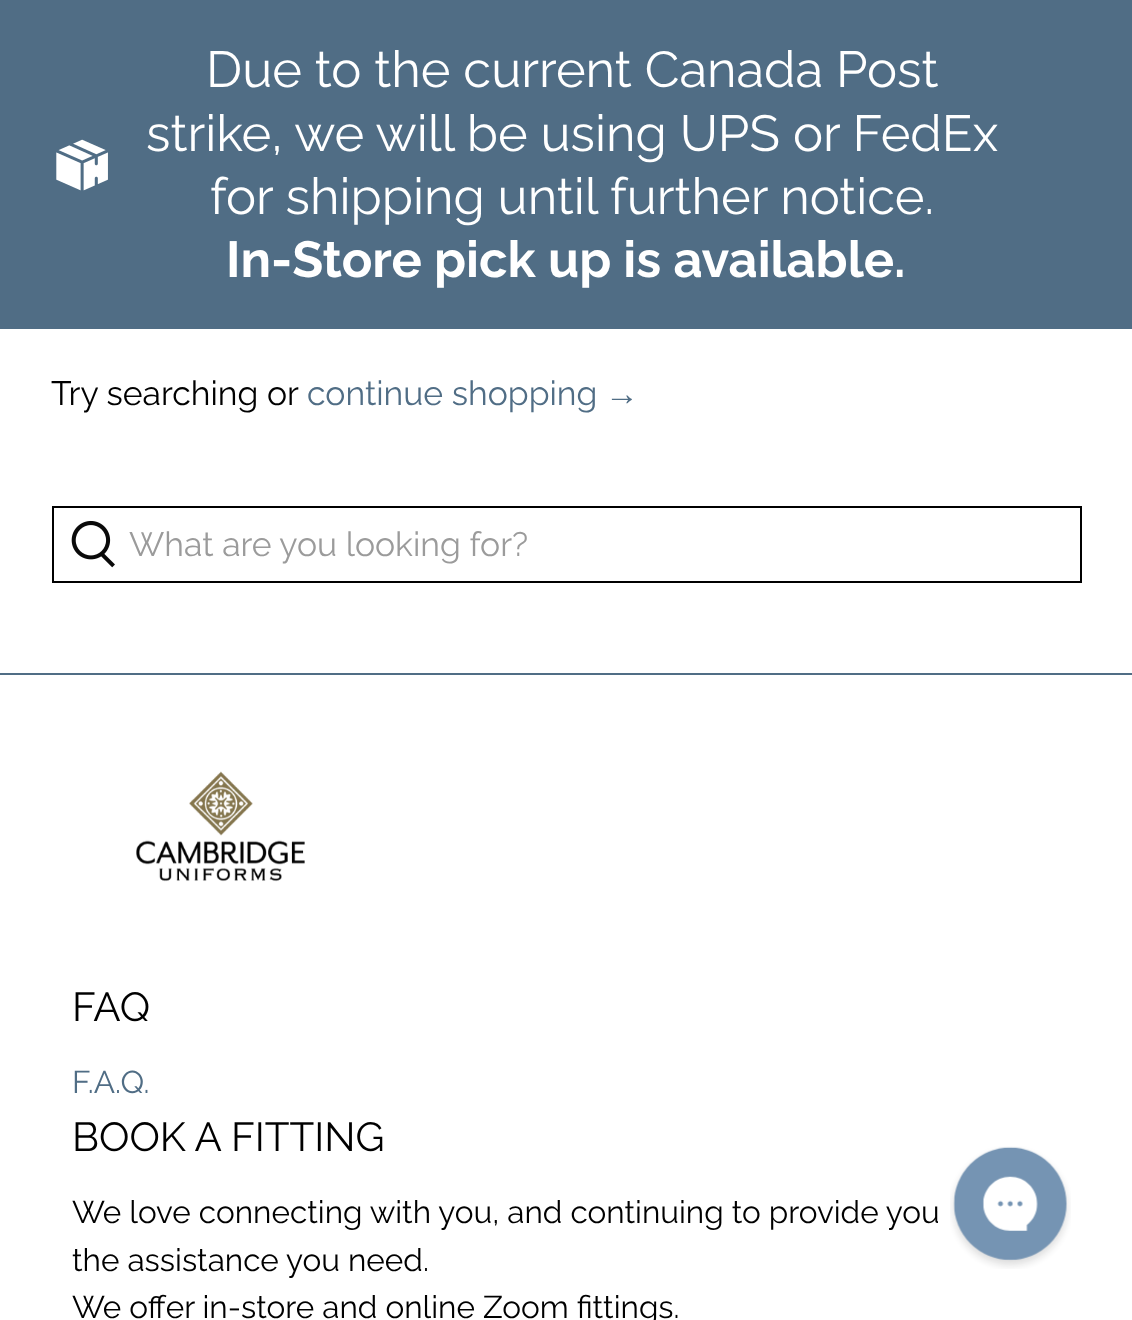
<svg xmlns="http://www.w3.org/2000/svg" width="1132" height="1320">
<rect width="100%" height="100%" fill="#fff"/>
<rect width="1132" height="329" fill="#506d85"/>
<image x="56" y="139" width="52" height="52" href="media/1.png"/>
<text x="206" y="87" style="font-family:Raleway;font-size:50.6px;fill:#fff">Due to the current Canada Post</text>
<text x="146" y="151" style="font-family:Raleway;font-size:50.6px;fill:#fff">strike, we will be using UPS or FedEx</text>
<text x="210" y="214" style="font-family:Raleway;font-size:50.6px;fill:#fff">for shipping until further notice.</text>
<text x="226" y="277" style="font-family:Raleway;font-size:50.6px;font-weight:bold;fill:#fff">In-Store pick up is available.</text>
<text x="51" y="405" style="font-family:Raleway;font-size:33.75px;fill:#000">Try searching or</text>
<text x="307" y="405" style="font-family:Raleway;font-size:33.75px;fill:#506d85">continue shopping</text>
<text x="605" y="405" style="font-family:Liberation Sans;font-size:33.75px;fill:#506d85">→</text>
<rect x="53" y="507" width="1028" height="75" fill="none" stroke="#000" stroke-width="2"/>
<image x="71" y="520" width="44" height="48" href="media/2.png"/>
<text x="129" y="556" style="font-family:Raleway;font-size:33.75px;fill:#9b9b9b">What are you looking for?</text>
<rect y="673" width="1132" height="2" fill="#506d85"/>
<image x="136" y="771" width="169" height="111" href="media/3.png"/>
<text x="72" y="1021" style="font-family:Raleway;font-size:40.5px;fill:#000">FAQ</text>
<text x="72" y="1093" style="font-family:Raleway;font-size:31.5px;fill:#506d85">F.A.Q.</text>
<text x="72" y="1151" style="font-family:Raleway;font-size:40.5px;fill:#000">BOOK A FITTING</text>
<text x="72" y="1223" style="font-family:Raleway;font-size:31.5px;fill:#000">We love connecting with you, and continuing to provide you</text>
<text x="72" y="1271" style="font-family:Raleway;font-size:31.5px;fill:#000">the assistance you need.</text>
<text x="72" y="1318" style="font-family:Raleway;font-size:31.5px;fill:#000">We offer in-store and online Zoom fittings.</text>
<image x="950" y="1146" width="121" height="123" href="media/4.png"/>
</svg>
